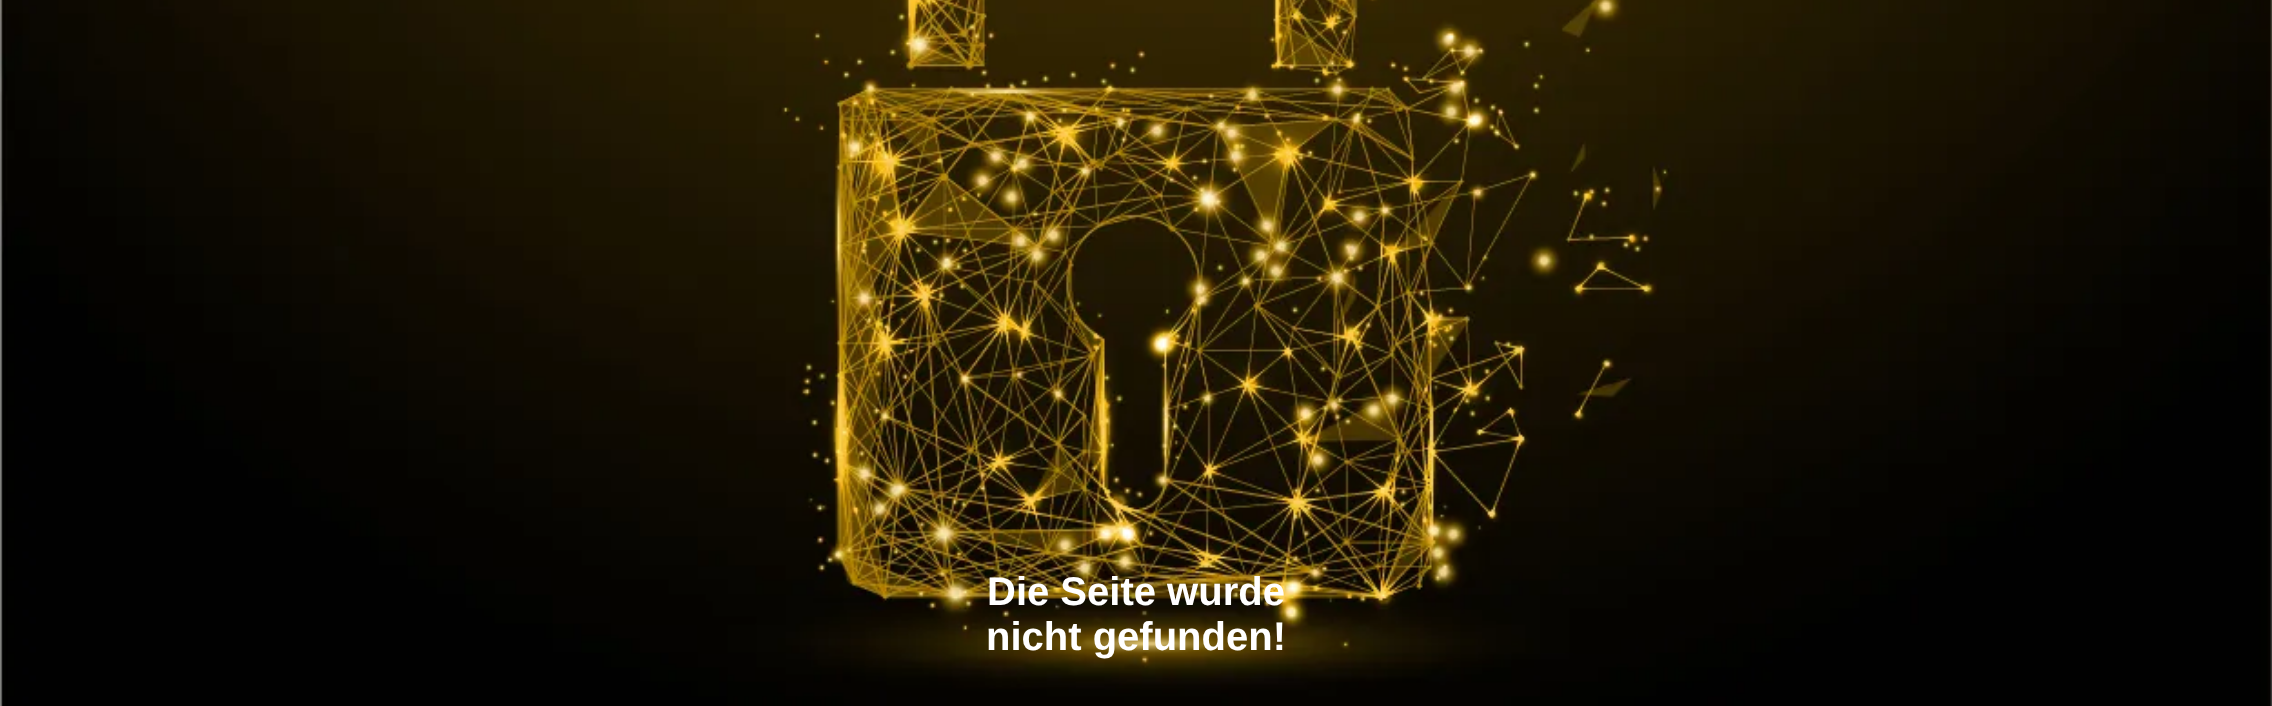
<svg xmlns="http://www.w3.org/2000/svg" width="2272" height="706">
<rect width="100%" height="100%" fill="#fff"/>
<image x="0" y="0" width="2272" height="706" href="media/1.png"/>
<text x="987" y="605" style="font-family:Liberation Sans;font-size:40px;font-weight:bold;fill:#fff">Die Seite wurde</text>
<text x="986" y="650" style="font-family:Liberation Sans;font-size:40px;font-weight:bold;fill:#fff">nicht gefunden!</text>
</svg>
